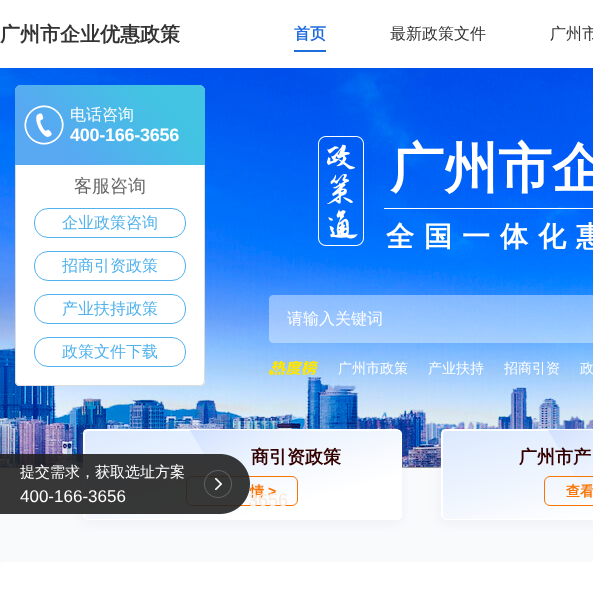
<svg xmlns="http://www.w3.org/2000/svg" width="593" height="600">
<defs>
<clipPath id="clip1"><rect x="83" y="429" width="318" height="90" rx="4"/></clipPath>
<linearGradient id="g1" gradientUnits="userSpaceOnUse" x1="238" y1="419" x2="246" y2="529"><stop offset="0" stop-color="#dbe9fe"/><stop offset="1" stop-color="#fff"/></linearGradient>
<linearGradient id="g2" gradientUnits="userSpaceOnUse" x1="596" y1="419" x2="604" y2="529"><stop offset="0" stop-color="#dbe9fe"/><stop offset="1" stop-color="#fff"/></linearGradient>
</defs>
<rect width="100%" height="100%" fill="#f9fafc"/>
<rect width="593" height="68" fill="#fff"/>
<text x="0" y="41" style="font-family:WenQuanYi Zen Hei;font-size:20px;font-weight:bold;fill:#333">广州市企业优惠政策</text>
<rect x="294" y="50" width="32" height="2" fill="#1f6cdd"/>
<text x="294" y="39" style="font-family:WenQuanYi Zen Hei;font-size:16px;font-weight:bold;fill:#1f6cdd">首页</text>
<text x="390" y="39" style="font-family:WenQuanYi Zen Hei;font-size:16px;font-weight:500;fill:#333">最新政策文件</text>
<text x="550" y="39" style="font-family:WenQuanYi Zen Hei;font-size:16px;font-weight:500;fill:#333">广州市</text>
<image x="0" y="68" width="593" height="400" href="media/2.png"/>
<image x="15" y="85" width="190" height="80" href="media/1.png"/>
<text x="70" y="120" style="font-family:WenQuanYi Zen Hei;font-size:16px;font-weight:500;fill:#fff">电话咨询</text>
<text x="70" y="141" style="font-family:Liberation Sans;font-size:18px;font-weight:bold;letter-spacing:-0.25px;fill:#fff">400-166-3656</text>
<path d="M15 165h190v216c0 3-2 5-5 5h-180c-3 0-5-2-5-5z" fill="#fff"/>
<path d="M15 165h190v216c0 3-2 5-5 5h-180c-3 0-5-2-5-5zm1 0h188v216c0 2-2 4-4 4h-180c-2 0-4-2-4-4z" fill="#ddd" fill-rule="evenodd"/>
<text x="74" y="192" style="font-family:WenQuanYi Zen Hei;font-size:18px;font-weight:500;fill:#666">客服咨询</text>
<rect x="34.5" y="208.5" width="151" height="29" rx="13.5" fill="none" stroke="#51b2ec"/>
<text x="62" y="228" style="font-family:WenQuanYi Zen Hei;font-size:16px;font-weight:500;fill:#51b2ec">企业政策咨询</text>
<rect x="34.5" y="251.5" width="151" height="29" rx="13.5" fill="none" stroke="#51b2ec"/>
<text x="62" y="271" style="font-family:WenQuanYi Zen Hei;font-size:16px;font-weight:500;fill:#51b2ec">招商引资政策</text>
<rect x="34.5" y="294.5" width="151" height="29" rx="13.5" fill="none" stroke="#51b2ec"/>
<text x="62" y="314" style="font-family:WenQuanYi Zen Hei;font-size:16px;font-weight:500;fill:#51b2ec">产业扶持政策</text>
<rect x="34.5" y="337.5" width="151" height="29" rx="13.5" fill="none" stroke="#51b2ec"/>
<text x="62" y="357" style="font-family:WenQuanYi Zen Hei;font-size:16px;font-weight:500;fill:#51b2ec">政策文件下载</text>
<image x="318" y="136" width="46" height="110" href="media/3.png"/>
<text x="390" y="187" style="font-family:WenQuanYi Zen Hei;font-size:54px;font-weight:bold;fill:#fff">广州市企</text>
<rect x="384" y="208" width="209" height="1" fill="#fff"/>
<text x="386" y="246" style="font-family:WenQuanYi Zen Hei;font-size:28px;font-weight:bold;letter-spacing:10px;fill:#fff">全国一体化惠</text>
<path d="M273 295h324v48h-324c-2 0-4-2-4-4v-40c0-2 2-4 4-4z" fill="#ffffff66"/>
<text x="287" y="324" style="font-family:WenQuanYi Zen Hei;font-size:16px;font-weight:500;fill:#fff">请输入关键词</text>
<image x="269" y="361" width="49" height="14" href="media/4.png"/>
<text x="338" y="373" style="font-family:WenQuanYi Zen Hei;font-size:14px;font-weight:500;fill:#fff">广州市政策</text>
<text x="428" y="373" style="font-family:WenQuanYi Zen Hei;font-size:14px;font-weight:500;fill:#fff">产业扶持</text>
<text x="504" y="373" style="font-family:WenQuanYi Zen Hei;font-size:14px;font-weight:500;fill:#fff">招商引资</text>
<text x="580" y="373" style="font-family:WenQuanYi Zen Hei;font-size:14px;font-weight:500;fill:#fff">政</text>
<rect x="83" y="433" width="318" height="90" rx="4" fill="#dae1ea66" filter="blur(6px)"/>
<g clip-path="url(#clip1)">
<rect x="84" y="430" width="316" height="88" fill="url(#g1)"/>
</g>
<rect x="83.5" y="429.5" width="317" height="89" rx="3.5" fill="none" stroke="#fff"/>
<image x="84" y="430" width="318" height="90" href="media/5.png"/>
<text x="251" y="463" style="font-family:WenQuanYi Zen Hei;font-size:18px;font-weight:bold;fill:#300">商引资政策</text>
<rect x="186.5" y="476.5" width="111" height="29" rx="5.5" fill="none" stroke="#f87403"/>
<text x="250" y="496" style="font-family:WenQuanYi Zen Hei;font-size:14px;font-weight:bold;fill:#f87403">情</text>
<text x="268" y="496" style="font-family:Liberation Sans;font-size:14px;font-weight:bold;fill:#f87403">&gt;</text>
<rect x="441" y="433" width="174" height="90" rx="4" fill="#dae1ea66" filter="blur(6px)"/>
<rect x="442" y="430" width="4" height="88" fill="url(#g2)"/>
<rect x="441.5" y="429.5" width="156" height="89" rx="3.5" fill="none" stroke="#fff"/>
<image x="442" y="430" width="151" height="90" href="media/6.png"/>
<text x="519" y="463" style="font-family:WenQuanYi Zen Hei;font-size:18px;font-weight:bold;fill:#300">广州市产</text>
<rect x="544.5" y="476.5" width="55" height="29" rx="5.5" fill="none" stroke="#f87403"/>
<text x="566" y="496" style="font-family:WenQuanYi Zen Hei;font-size:14px;font-weight:bold;fill:#f87403">查看</text>
<text x="248" y="506" style="font-family:Liberation Sans;font-size:18px;fill:#f9e9dc">3656</text>
<image x="0" y="454" width="250" height="60" href="media/7.png"/>
<text x="20" y="477" style="font-family:WenQuanYi Zen Hei;font-size:15px;font-weight:500;fill:#fff">提交需求，获取选址方案</text>
<text x="20" y="502" style="font-family:Liberation Sans;font-size:17px;fill:#fff">400-166-3656</text>
<rect y="562" width="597" height="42" rx="4" fill="#fff"/>
</svg>
